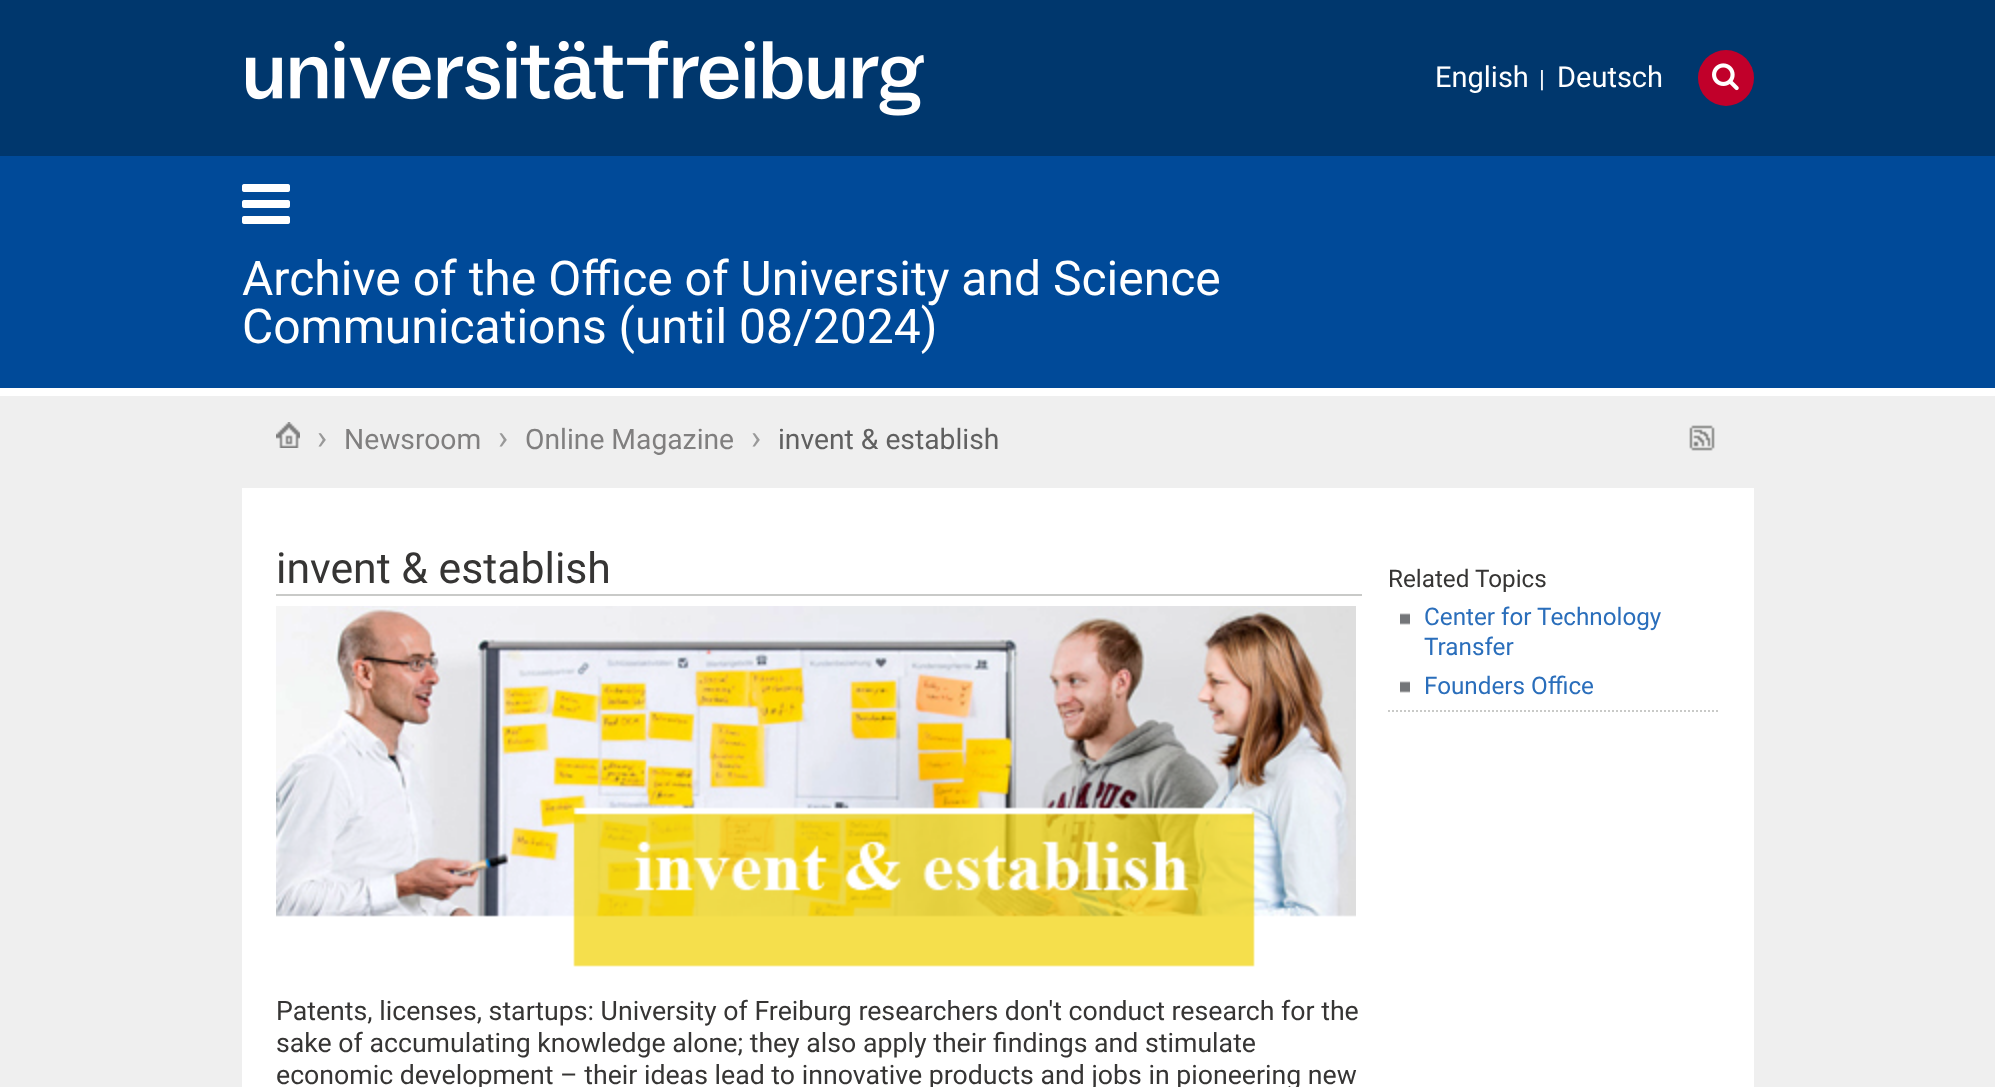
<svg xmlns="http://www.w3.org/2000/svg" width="1995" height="1087">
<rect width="100%" height="100%" fill="#efefef"/>
<rect y="156" width="1995" height="232" fill="#004a99"/>
<rect y="388" width="1995" height="8" fill="#fff"/>
<rect width="1995" height="156" fill="#00376d"/>
<image x="246" y="40" width="678" height="76" href="media/1.png"/>
<text x="1435" y="87" style="font-family:Roboto;font-size:29px;fill:#fff">English</text>
<text x="1539" y="87" style="font-family:Roboto;font-size:24px;fill:#fff">|</text>
<text x="1557" y="87" style="font-family:Roboto;font-size:29px;fill:#fff">Deutsch</text>
<circle cx="1726" cy="78" r="28" fill="#c1002a"/>
<image x="1712" y="63" width="27" height="28" href="media/2.png"/>
<image x="242" y="184" width="48" height="40" href="media/3.png"/>
<text x="242" y="295" style="font-family:Roboto;font-size:48px;fill:#fff">Archive of the Office of University and Science</text>
<text x="242" y="343" style="font-family:Roboto;font-size:48px;fill:#fff">Communications (until 08/2024)</text>
<rect x="242" y="488" width="1512" height="599" fill="#fff"/>
<image x="276" y="422" width="24" height="26" href="media/4.png"/>
<text x="317" y="449" style="font-family:Roboto;font-size:34px;fill:#999">›</text>
<text x="344" y="449" style="font-family:Roboto;font-size:28.25px;fill:#807f7f">Newsroom</text>
<text x="498" y="449" style="font-family:Roboto;font-size:34px;fill:#999">›</text>
<text x="525" y="449" style="font-family:Roboto;font-size:28.25px;fill:#807f7f">Online Magazine</text>
<text x="751" y="449" style="font-family:Roboto;font-size:34px;fill:#999">›</text>
<text x="778" y="449" style="font-family:Roboto;font-size:28.25px;fill:#606060">invent &amp; establish</text>
<image x="1689" y="425" width="26" height="26" href="media/5.png"/>
<rect x="276" y="594" width="1086" height="2" fill="#c9cac8"/>
<text x="276" y="583" style="font-family:Roboto;font-size:42.75px;fill:#363534">invent &amp; establish</text>
<image x="276" y="606" width="1080" height="361" href="media/6.png"/>
<text x="276" y="1020" style="font-family:Roboto;font-size:26.7px;fill:#363534">Patents, licenses, startups: University of Freiburg researchers don't conduct research for the</text>
<text x="276" y="1052" style="font-family:Roboto;font-size:26.7px;fill:#363534">sake of accumulating knowledge alone; they also apply their findings and stimulate</text>
<text x="276" y="1084" style="font-family:Roboto;font-size:26.7px;fill:#363534">economic development – their ideas lead to innovative products and jobs in pioneering new</text>
<text x="1388" y="587" style="font-family:Roboto;font-size:24.25px;fill:#363534">Related Topics</text>
<path d="M1388 711h332" fill="none" stroke="#c9cac8" stroke-width="2" stroke-dasharray="2 2"/>
<image x="1400" y="613" width="10" height="12" href="media/7.png"/>
<text x="1424" y="625" style="font-family:Roboto;font-size:24.25px;fill:#2a6ebb">Center for Technology</text>
<text x="1424" y="655" style="font-family:Roboto;font-size:24.25px;fill:#2a6ebb">Transfer</text>
<image x="1400" y="681" width="10" height="12" href="media/7.png"/>
<text x="1424" y="694" style="font-family:Roboto;font-size:24.25px;fill:#2a6ebb">Founders Office</text>
</svg>
